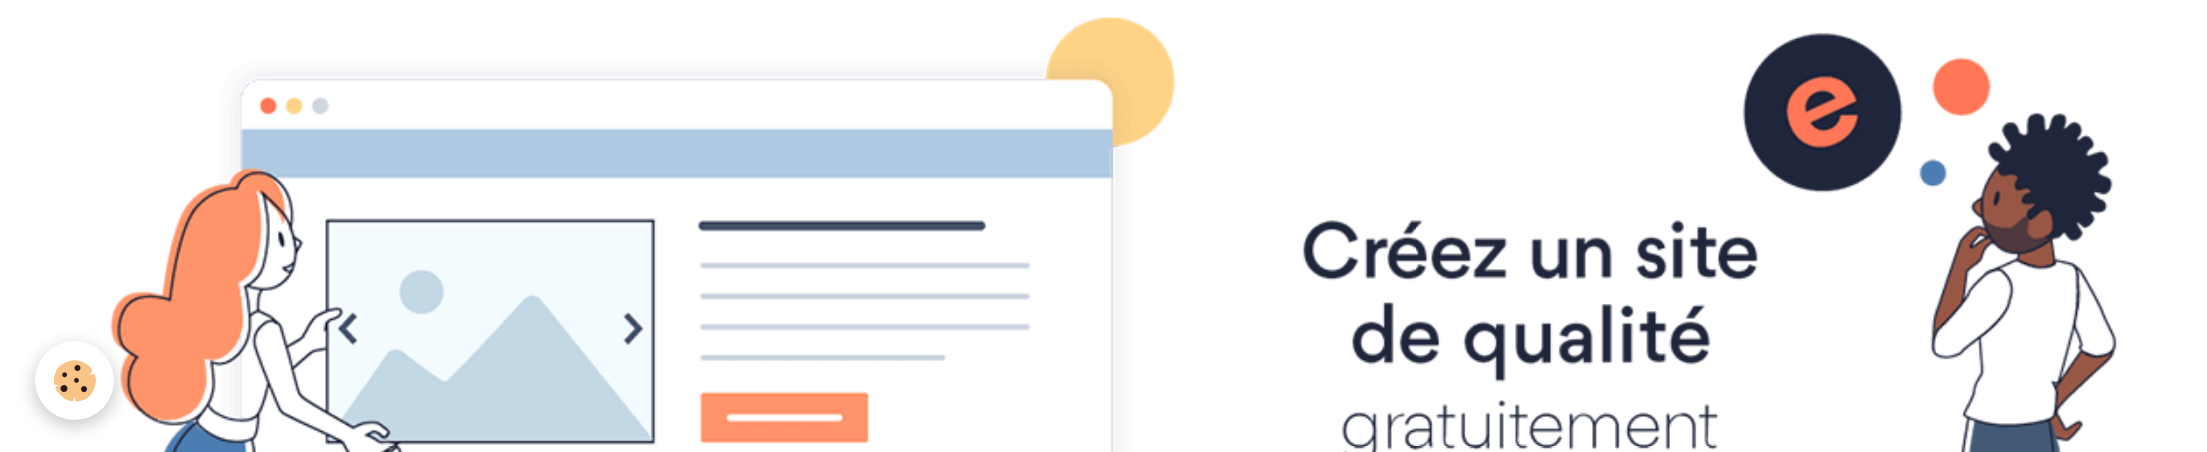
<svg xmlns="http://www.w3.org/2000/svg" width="2207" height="452">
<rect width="100%" height="100%" fill="#fff"/>
<image x="110" y="17" width="2007" height="435" href="media/2.png"/>
<rect x="35" y="347" width="79" height="78" rx="39" fill="#0000003d" filter="blur(9px)"/>
<circle cx="74.5" cy="380.5" r="39.5" fill="#fff"/>
<image x="53" y="360" width="43" height="42" href="media/1.png"/>
</svg>
